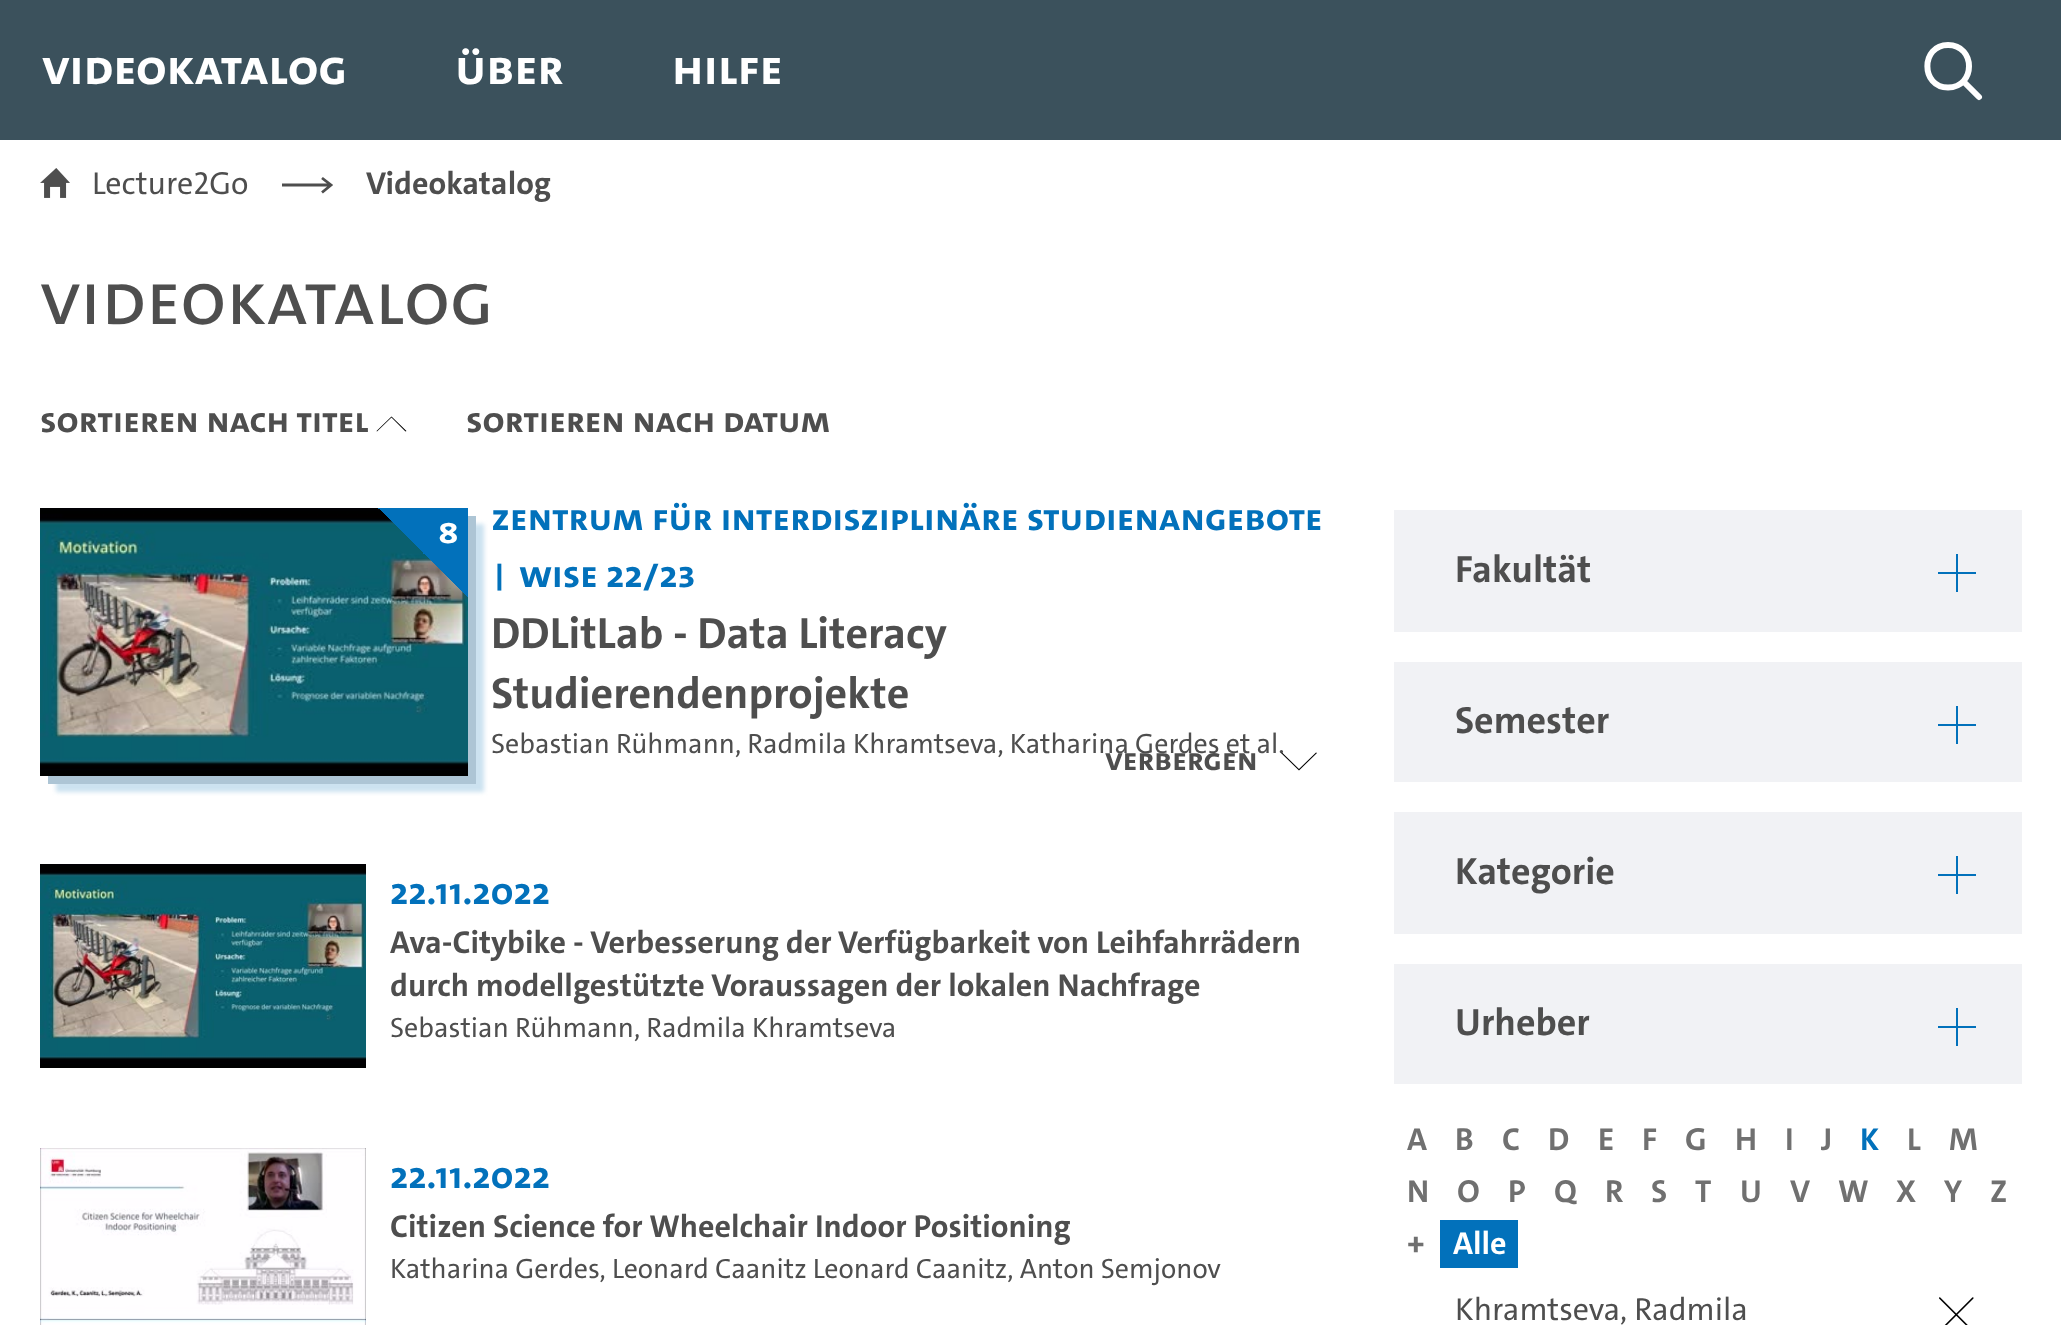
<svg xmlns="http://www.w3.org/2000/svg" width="2061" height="1325">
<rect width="100%" height="100%" fill="#fff"/>
<rect width="2061" height="140" fill="#3b515c"/>
<text x="42" y="84" style="font-family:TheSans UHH;font-size:50px;font-weight:bold;fill:#fff">Videokatalog</text>
<text x="455" y="84" style="font-family:TheSans UHH;font-size:50px;font-weight:bold;fill:#fff">Über</text>
<text x="672" y="84" style="font-family:TheSans UHH;font-size:50px;font-weight:bold;fill:#fff">Hilfe</text>
<path d="M1948 87.5c28 0 28-42.5 0-42.5c-27.5 0-27.5 42.5 0 42.5zm15.5-6l15.5 15.5" fill="none" stroke="#fff" stroke-width="6" stroke-linecap="round"/>
<image x="40" y="168" width="30" height="30" href="media/1.png"/>
<text x="92" y="194" style="font-family:'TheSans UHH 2';font-size:32px;fill:#4e4e4e">Lecture2Go</text>
<path d="M282 185h47.5m-7.5-7l9 7l-9 7.5" fill="none" stroke="#4e4e4e" stroke-width="2.8"/>
<text x="366" y="194" style="font-family:'TheSans UHH 2';font-size:32px;font-weight:bold;fill:#4e4e4e">Videokatalog</text>
<text x="40" y="324" style="font-family:TheSans UHH;font-size:76px;fill:#4e4e4e">Videokatalog</text>
<text x="40" y="432" style="font-family:TheSans UHH;font-size:36px;font-weight:bold;fill:#4e4e4e">Sortieren nach Titel</text>
<path d="M405.5 431.5l-14-14l-14.5 14l-.5-.5l15-14.5l15 14.5z" fill="#010101"/>
<text x="466" y="432" style="font-family:TheSans UHH;font-size:36px;font-weight:bold;fill:#4e4e4e">Sortieren nach Datum</text>
<rect x="56" y="524" width="428" height="268" fill="#cce2f0" filter="blur(2px)"/>
<path d="M48 776v8h428v-268h-8v260z" fill="#adc5d5"/>
<image x="40" y="508" width="428" height="268" href="media/2.png"/>
<text x="438" y="543" style="font-family:TheSans UHH;font-size:38px;font-weight:bold;fill:#fff">8</text>
<text x="491" y="530" style="font-family:TheSans UHH;font-size:38px;font-weight:bold;fill:#0271bb">Zentrum für interdisziplinäre Studienangebote</text>
<text x="494" y="587" style="font-family:TheSans UHH;font-size:38px;font-weight:bold;fill:#0271bb">|</text>
<text x="519" y="587" style="font-family:TheSans UHH;font-size:38px;font-weight:bold;fill:#0271bb">WiSe 22/23</text>
<text x="491" y="648" style="font-family:'TheSans UHH 2';font-size:44px;font-weight:bold;fill:#4e4e4e">DDLitLab - Data Literacy</text>
<text x="491" y="708" style="font-family:'TheSans UHH 2';font-size:44px;font-weight:bold;fill:#4e4e4e">Studierendenprojekte</text>
<text x="491" y="753" style="font-family:'TheSans UHH 2';font-size:28px;fill:#4e4e4e">Sebastian Rühmann, Radmila Khramtseva, Katharina Gerdes et al.</text>
<text x="1105" y="770" style="font-family:TheSans UHH;font-size:32px;font-weight:bold;fill:#4e4e4e">Verbergen</text>
<path d="M1282 752.5l17 16.5l17-16.5l1 .5l-18 17.5l-18-17.5z" fill="#010101"/>
<image x="40" y="864" width="326" height="204" href="media/3.png"/>
<text x="390" y="904" style="font-family:TheSans UHH;font-size:38px;font-weight:bold;fill:#0271bb">22.11.2022</text>
<text x="390" y="953" style="font-family:'TheSans UHH 2';font-size:32px;font-weight:bold;fill:#4e4e4e">Ava-Citybike - Verbesserung der Verfügbarkeit von Leihfahrrädern</text>
<text x="390" y="996" style="font-family:'TheSans UHH 2';font-size:32px;font-weight:bold;fill:#4e4e4e">durch modellgestützte Voraussagen der lokalen Nachfrage</text>
<text x="390" y="1037" style="font-family:'TheSans UHH 2';font-size:28px;fill:#4e4e4e">Sebastian Rühmann, Radmila Khramtseva</text>
<image x="40" y="1148" width="326" height="177" href="media/4.png"/>
<text x="390" y="1188" style="font-family:TheSans UHH;font-size:38px;font-weight:bold;fill:#0271bb">22.11.2022</text>
<text x="390" y="1237" style="font-family:'TheSans UHH 2';font-size:32px;font-weight:bold;fill:#4e4e4e">Citizen Science for Wheelchair Indoor Positioning</text>
<text x="390" y="1278" style="font-family:'TheSans UHH 2';font-size:28px;fill:#4e4e4e">Katharina Gerdes, Leonard Caanitz Leonard Caanitz, Anton Semjonov</text>
<rect x="1394" y="510" width="628" height="122" fill="#f1f2f5"/>
<text x="1455" y="582" style="font-family:'TheSans UHH 2';font-size:38px;font-weight:bold;fill:#4e4e4e">Fakultät</text>
<rect x="1938" y="572" width="38" height="2" fill="#0271bb"/>
<rect x="1956" y="554" width="2" height="38" fill="#0271bb"/>
<rect x="1394" y="662" width="628" height="120" fill="#f1f2f5"/>
<text x="1455" y="733" style="font-family:'TheSans UHH 2';font-size:38px;font-weight:bold;fill:#4e4e4e">Semester</text>
<rect x="1938" y="724" width="38" height="2" fill="#0271bb"/>
<rect x="1956" y="706" width="2" height="38" fill="#0271bb"/>
<rect x="1394" y="812" width="628" height="122" fill="#f1f2f5"/>
<text x="1455" y="884" style="font-family:'TheSans UHH 2';font-size:38px;font-weight:bold;fill:#4e4e4e">Kategorie</text>
<rect x="1938" y="874" width="38" height="2" fill="#0271bb"/>
<rect x="1956" y="856" width="2" height="38" fill="#0271bb"/>
<rect x="1394" y="964" width="628" height="120" fill="#f1f2f5"/>
<text x="1455" y="1035" style="font-family:'TheSans UHH 2';font-size:38px;font-weight:bold;fill:#4e4e4e">Urheber</text>
<rect x="1938" y="1026" width="38" height="2" fill="#0271bb"/>
<rect x="1956" y="1008" width="2" height="38" fill="#0271bb"/>
<text x="1407" y="1150" style="font-family:'TheSans UHH 2';font-size:32px;font-weight:bold;fill:#707070">A</text>
<text x="1455" y="1150" style="font-family:'TheSans UHH 2';font-size:32px;font-weight:bold;fill:#707070">B</text>
<text x="1502" y="1150" style="font-family:'TheSans UHH 2';font-size:32px;font-weight:bold;fill:#707070">C</text>
<text x="1548" y="1150" style="font-family:'TheSans UHH 2';font-size:32px;font-weight:bold;fill:#707070">D</text>
<text x="1598" y="1150" style="font-family:'TheSans UHH 2';font-size:32px;font-weight:bold;fill:#707070">E</text>
<text x="1642" y="1150" style="font-family:'TheSans UHH 2';font-size:32px;font-weight:bold;fill:#707070">F</text>
<text x="1685" y="1150" style="font-family:'TheSans UHH 2';font-size:32px;font-weight:bold;fill:#707070">G</text>
<text x="1735" y="1150" style="font-family:'TheSans UHH 2';font-size:32px;font-weight:bold;fill:#707070">H</text>
<text x="1785" y="1150" style="font-family:'TheSans UHH 2';font-size:32px;font-weight:bold;fill:#707070">I</text>
<text x="1821" y="1150" style="font-family:'TheSans UHH 2';font-size:32px;font-weight:bold;fill:#707070">J</text>
<text x="1860" y="1150" style="font-family:'TheSans UHH 2';font-size:32px;font-weight:bold;fill:#0271bb">K</text>
<text x="1907" y="1150" style="font-family:'TheSans UHH 2';font-size:32px;font-weight:bold;fill:#707070">L</text>
<text x="1949" y="1150" style="font-family:'TheSans UHH 2';font-size:32px;font-weight:bold;fill:#707070">M</text>
<text x="1407" y="1202" style="font-family:'TheSans UHH 2';font-size:32px;font-weight:bold;fill:#707070">N</text>
<text x="1457" y="1202" style="font-family:'TheSans UHH 2';font-size:32px;font-weight:bold;fill:#707070">O</text>
<text x="1508" y="1202" style="font-family:'TheSans UHH 2';font-size:32px;font-weight:bold;fill:#707070">P</text>
<text x="1554" y="1202" style="font-family:'TheSans UHH 2';font-size:32px;font-weight:bold;fill:#707070">Q</text>
<text x="1605" y="1202" style="font-family:'TheSans UHH 2';font-size:32px;font-weight:bold;fill:#707070">R</text>
<text x="1651" y="1202" style="font-family:'TheSans UHH 2';font-size:32px;font-weight:bold;fill:#707070">S</text>
<text x="1695" y="1202" style="font-family:'TheSans UHH 2';font-size:32px;font-weight:bold;fill:#707070">T</text>
<text x="1740" y="1202" style="font-family:'TheSans UHH 2';font-size:32px;font-weight:bold;fill:#707070">U</text>
<text x="1790" y="1202" style="font-family:'TheSans UHH 2';font-size:32px;font-weight:bold;fill:#707070">V</text>
<text x="1838" y="1202" style="font-family:'TheSans UHH 2';font-size:32px;font-weight:bold;fill:#707070">W</text>
<text x="1896" y="1202" style="font-family:'TheSans UHH 2';font-size:32px;font-weight:bold;fill:#707070">X</text>
<text x="1944" y="1202" style="font-family:'TheSans UHH 2';font-size:32px;font-weight:bold;fill:#707070">Y</text>
<text x="1990" y="1202" style="font-family:'TheSans UHH 2';font-size:32px;font-weight:bold;fill:#707070">Z</text>
<text x="1407" y="1254" style="font-family:'TheSans UHH 2';font-size:32px;font-weight:bold;fill:#707070">+</text>
<rect x="1440" y="1220" width="78" height="48" fill="#0271bb"/>
<text x="1453" y="1254" style="font-family:'TheSans UHH 2';font-size:32px;font-weight:bold;fill:#fff">Alle</text>
<text x="1455" y="1320" style="font-family:'TheSans UHH 2';font-size:32px;fill:#4e4e4e">Khramtseva, Radmila</text>
<image x="1939" y="1297" width="35" height="28" href="media/5.png"/>
</svg>
